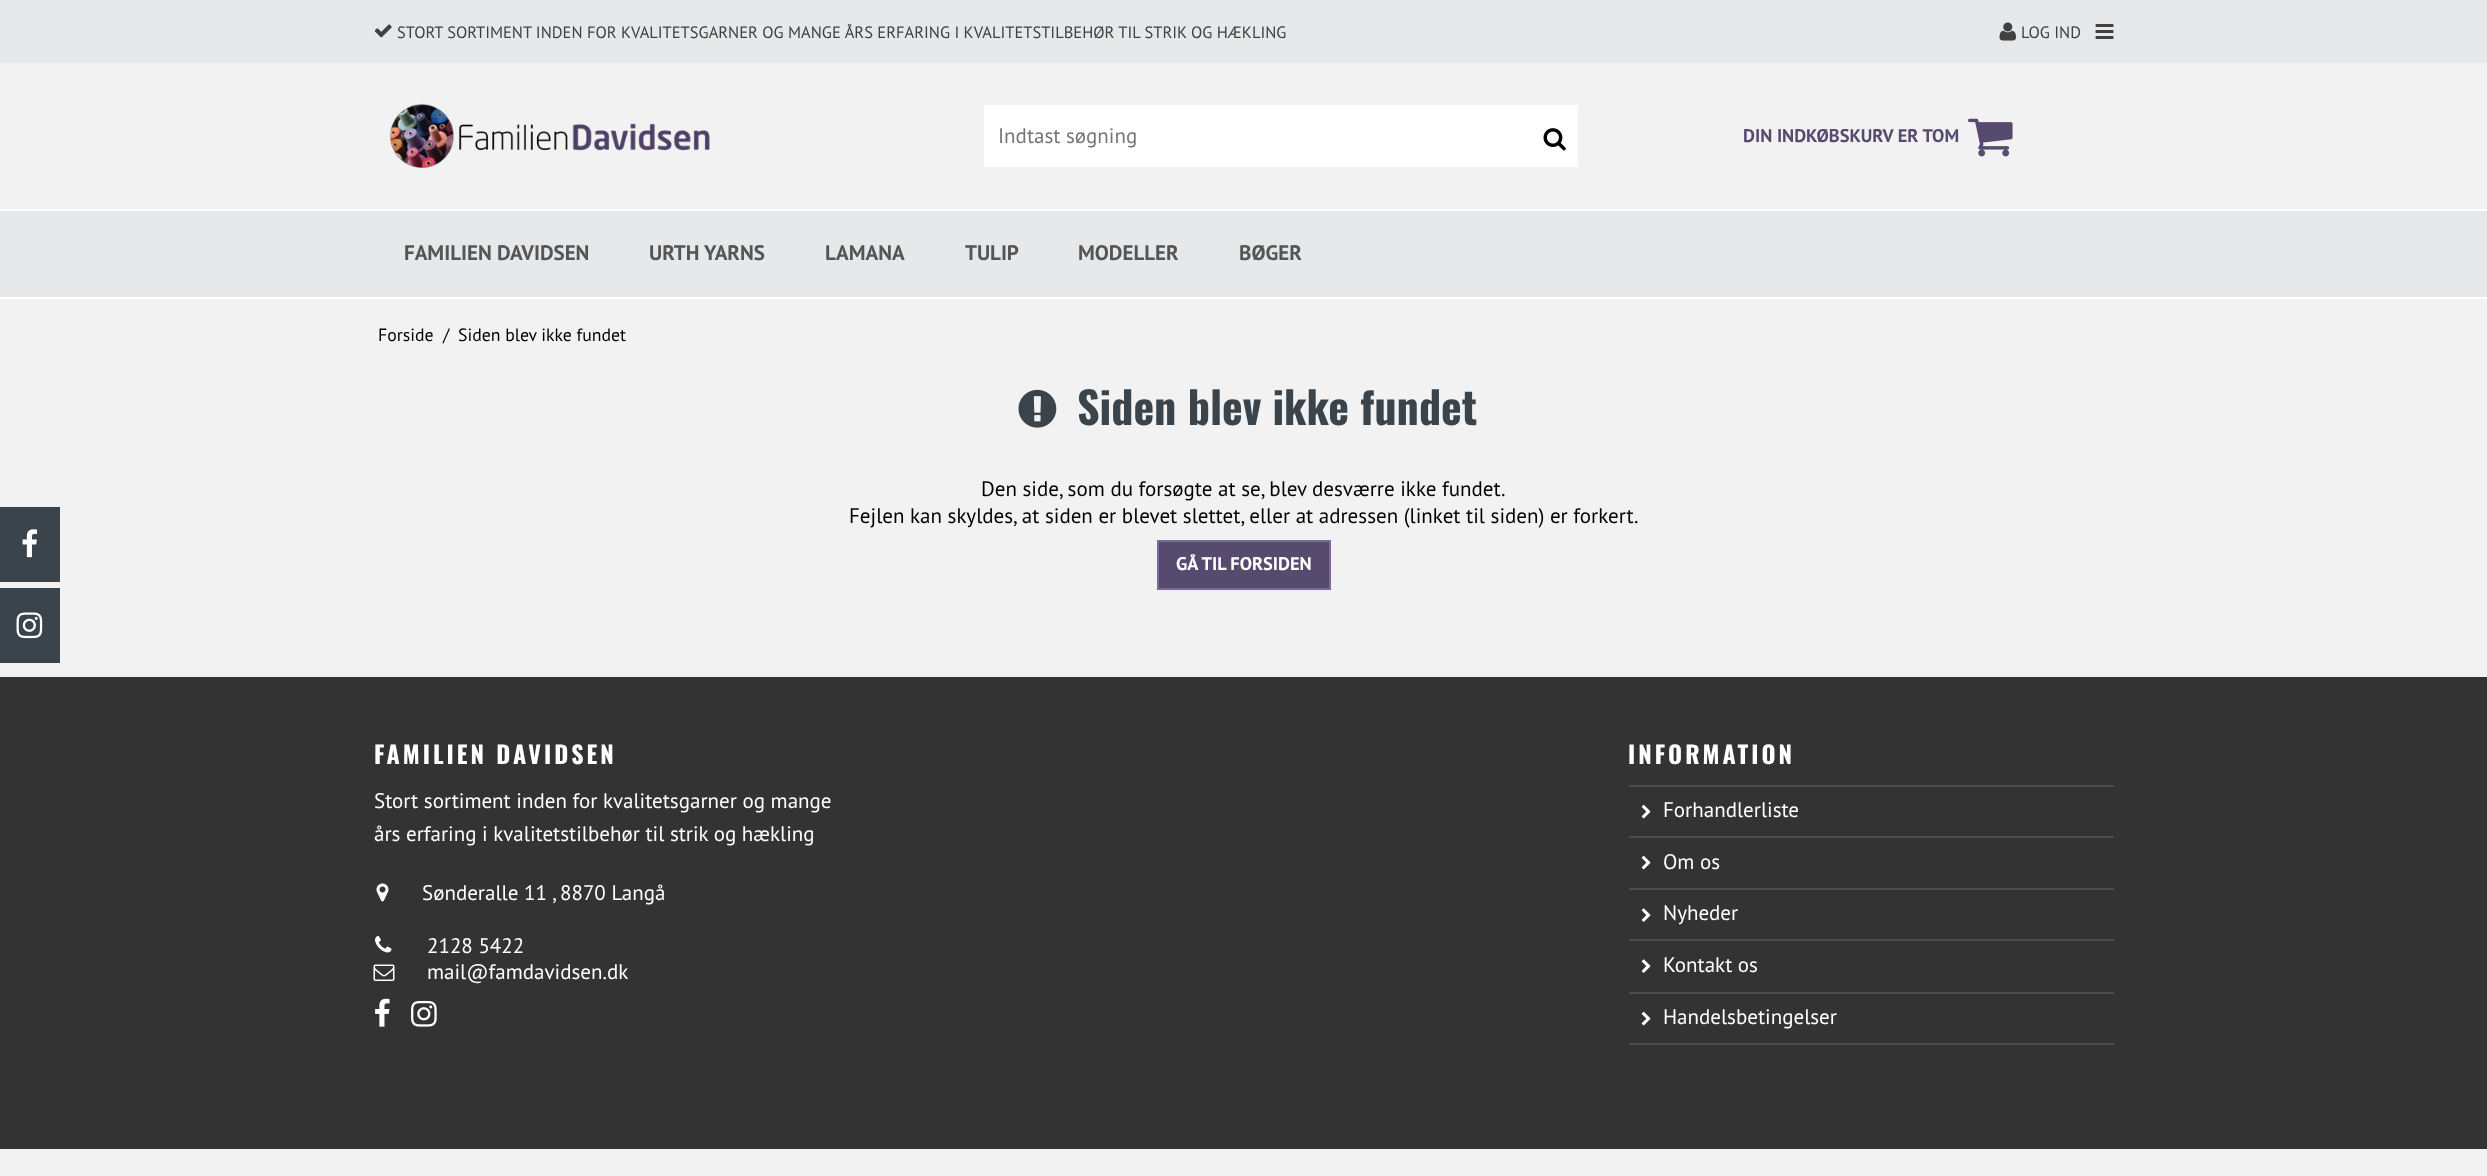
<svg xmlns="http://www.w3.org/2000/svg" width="2487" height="1176">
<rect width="100%" height="100%" fill="#f2f2f2"/>
<rect width="2487" height="63" fill="#e7e8ea"/>
<image x="374" y="24" width="18" height="14" href="media/1.png"/>
<text x="397" y="38" style="font-family:PT Sans;font-size:16.5px;fill:#404040">STORT SORTIMENT INDEN FOR KVALITETSGARNER OG MANGE ÅRS ERFARING I KVALITETSTILBEHØR TIL STRIK OG HÆKLING</text>
<image x="1999" y="22" width="17" height="19" href="media/2.png"/>
<text x="2021" y="38" style="font-family:PT Sans;font-size:16.5px;fill:#404040">LOG IND</text>
<image x="2095" y="24" width="19" height="15" href="media/3.png"/>
<image x="389" y="103" width="321" height="65" href="media/4.png"/>
<rect x="984" y="105" width="594" height="62" fill="#fff"/>
<text x="998" y="143" style="font-family:PT Sans;font-size:21px;fill:#757575">Indtast søgning</text>
<image x="1543" y="128" width="23" height="23" href="media/5.png"/>
<text x="1743" y="142" style="font-family:PT Sans;font-size:18.4px;font-weight:bold;fill:#564a6f">DIN INDKØBSKURV ER TOM</text>
<image x="1968" y="118" width="45" height="39" href="media/6.png"/>
<rect y="211" width="2487" height="86" fill="#e6e8e9"/>
<rect y="209" width="2487" height="2" fill="#fff"/>
<rect y="297" width="2487" height="2" fill="#fff"/>
<text x="404" y="260" style="font-family:PT Sans;font-size:21px;font-weight:bold;fill:#555">FAMILIEN DAVIDSEN</text>
<text x="649" y="260" style="font-family:PT Sans;font-size:21px;font-weight:bold;fill:#555">URTH YARNS</text>
<text x="825" y="260" style="font-family:PT Sans;font-size:21px;font-weight:bold;fill:#555">LAMANA</text>
<text x="965" y="260" style="font-family:PT Sans;font-size:21px;font-weight:bold;fill:#555">TULIP</text>
<text x="1078" y="260" style="font-family:PT Sans;font-size:21px;font-weight:bold;fill:#555">MODELLER</text>
<text x="1239" y="260" style="font-family:PT Sans;font-size:21px;font-weight:bold;fill:#555">BØGER</text>
<text x="378" y="341" style="font-family:PT Sans;font-size:17.75px;fill:#000">Forside</text>
<text x="443" y="341" style="font-family:PT Sans;font-size:17.75px;fill:#000">/</text>
<text x="458" y="341" style="font-family:PT Sans;font-size:17.75px;fill:#000">Siden blev ikke fundet</text>
<rect y="507" width="60" height="75" fill="#3b444b"/>
<image x="22" y="529" width="16" height="29" href="media/7.png"/>
<rect y="588" width="60" height="75" fill="#3b444b"/>
<image x="16" y="612" width="27" height="27" href="media/8.png"/>
<image x="1018" y="389" width="39" height="39" href="media/9.png"/>
<text x="1077" y="425" style="font-family:Oswald;font-size:44px;font-weight:bold;fill:#3b444b">Siden blev ikke fundet</text>
<text x="981" y="496" style="font-family:PT Sans;font-size:21px;fill:#000">Den side, som du forsøgte at se, blev desværre ikke fundet.</text>
<text x="849" y="523" style="font-family:PT Sans;font-size:21px;fill:#000">Fejlen kan skyldes, at siden er blevet slettet, eller at adressen (linket til siden) er forkert.</text>
<rect x="1158" y="541" width="172" height="48" fill="#564a6f" stroke="#7a6a9c" stroke-width="2"/>
<text x="1176" y="570" style="font-family:PT Sans;font-size:18.4px;font-weight:bold;fill:#fff">GÅ TIL FORSIDEN</text>
<rect y="677" width="2487" height="472" fill="#333"/>
<text x="374" y="764" style="font-family:Oswald;font-size:24px;font-weight:bold;letter-spacing:3px;fill:#fff">FAMILIEN DAVIDSEN</text>
<text x="374" y="808" style="font-family:PT Sans;font-size:21px;fill:#fff">Stort sortiment inden for kvalitetsgarner og mange</text>
<text x="374" y="841" style="font-family:PT Sans;font-size:21px;fill:#fff">års erfaring i kvalitetstilbehør til strik og hækling</text>
<image x="376" y="883" width="13" height="19" href="media/10.png"/>
<text x="422" y="900" style="font-family:PT Sans;font-size:21px;fill:#fff">Sønderalle 11 ,</text>
<text x="560" y="900" style="font-family:PT Sans;font-size:21px;fill:#fff">8870 Langå</text>
<image x="375" y="936" width="17" height="17" href="media/11.png"/>
<text x="427" y="953" style="font-family:PT Sans;font-size:21px;fill:#fff">2128 5422</text>
<image x="373" y="964" width="22" height="17" href="media/12.png"/>
<text x="427" y="979" style="font-family:PT Sans;font-size:21px;fill:#fff">mail@famdavidsen.dk</text>
<image x="375" y="998" width="15" height="29" href="media/13.png"/>
<image x="411" y="1000" width="26" height="27" href="media/14.png"/>
<text x="1628" y="764" style="font-family:Oswald;font-size:24px;font-weight:bold;letter-spacing:3px;fill:#fff">INFORMATION</text>
<rect x="1629" y="785" width="485" height="2" fill="#4d4d4d"/>
<image x="1641" y="804" width="10" height="15" href="media/15.png"/>
<text x="1663" y="817" style="font-family:PT Sans;font-size:21px;fill:#fff">Forhandlerliste</text>
<rect x="1629" y="836" width="485" height="2" fill="#4d4d4d"/>
<image x="1641" y="855" width="10" height="15" href="media/15.png"/>
<text x="1663" y="869" style="font-family:PT Sans;font-size:21px;fill:#fff">Om os</text>
<rect x="1629" y="888" width="485" height="2" fill="#4d4d4d"/>
<image x="1641" y="908" width="10" height="14" href="media/16.png"/>
<text x="1663" y="920" style="font-family:PT Sans;font-size:21px;fill:#fff">Nyheder</text>
<rect x="1629" y="939" width="485" height="2" fill="#4d4d4d"/>
<image x="1641" y="959" width="10" height="14" href="media/16.png"/>
<text x="1663" y="972" style="font-family:PT Sans;font-size:21px;fill:#fff">Kontakt os</text>
<rect x="1629" y="992" width="485" height="2" fill="#4d4d4d"/>
<rect x="1629" y="1043" width="485" height="2" fill="#4d4d4d"/>
<image x="1641" y="1011" width="10" height="15" href="media/15.png"/>
<text x="1663" y="1024" style="font-family:PT Sans;font-size:21px;fill:#fff">Handelsbetingelser</text>
</svg>
